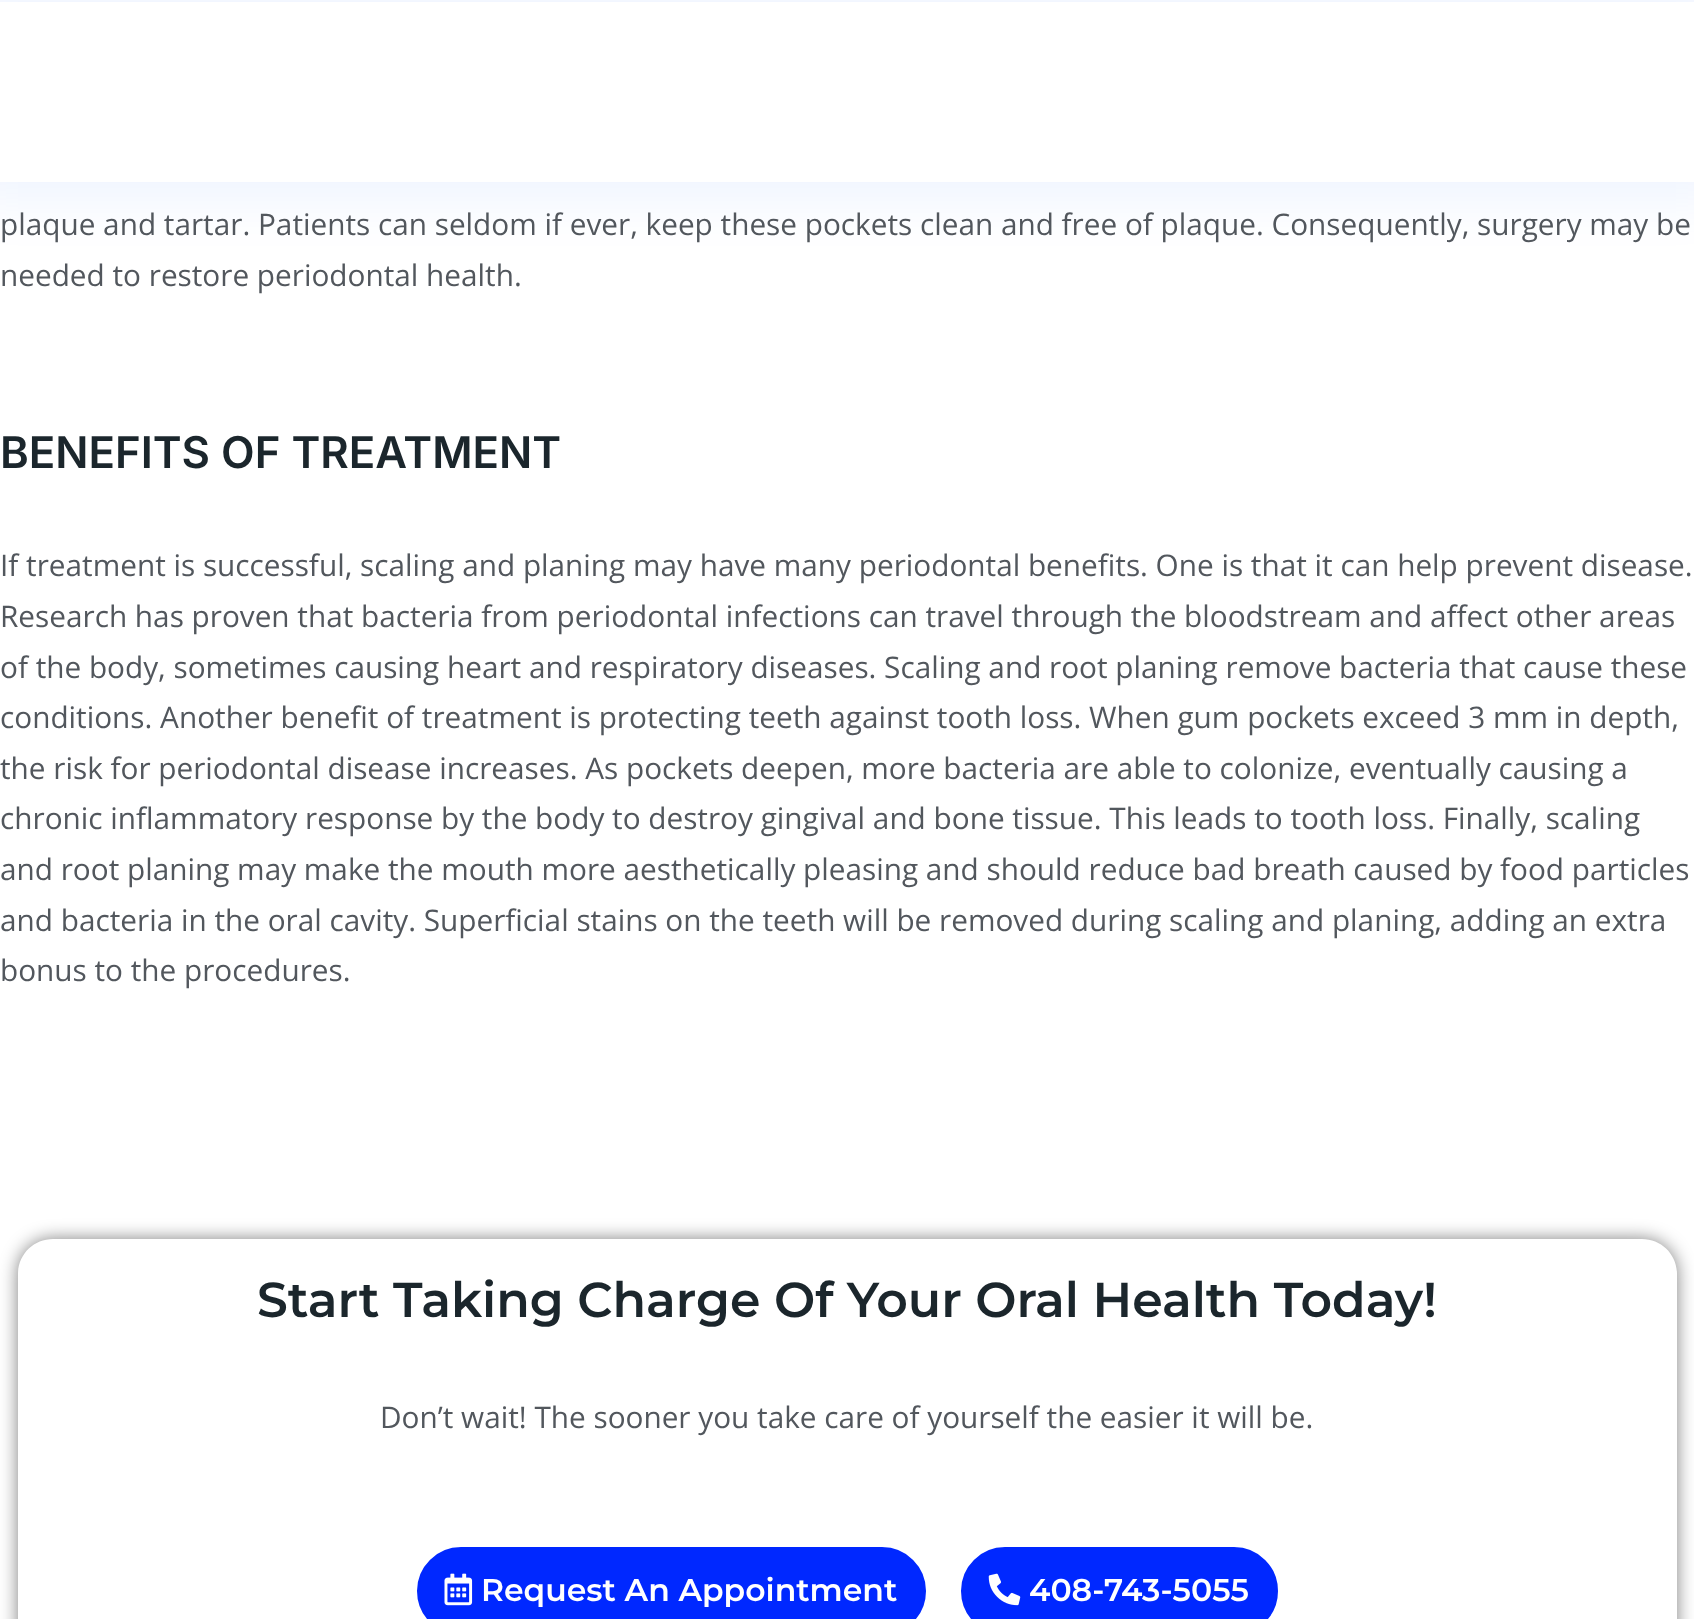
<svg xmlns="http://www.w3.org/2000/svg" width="1694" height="1619">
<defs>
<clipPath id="clip1"><path d="M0 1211h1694v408h-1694zm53 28h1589c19.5 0 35 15.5 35 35v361c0 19.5-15.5 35-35 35h-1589c-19.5 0-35-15.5-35-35v-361c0-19.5 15.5-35 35-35z" clip-rule="evenodd"/></clipPath>
</defs>
<rect width="100%" height="100%" fill="#fff"/>
<rect x="-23" y="-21" width="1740" height="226" fill="#005bfd0f" filter="blur(23.5px)"/>
<rect y="2" width="1694" height="180" fill="#fff"/>
<text x="0" y="235" style="font-family:Open Sans;font-size:29.75px;fill:#52575d">plaque and tartar. Patients can seldom if ever, keep these pockets clean and free of plaque. Consequently, surgery may be</text>
<text x="0" y="286" style="font-family:Open Sans;font-size:29.75px;fill:#52575d">needed to restore periodontal health.</text>
<text x="0" y="468" style="font-family:Inter;font-size:43.75px;font-weight:600;fill:#1b262c">BENEFITS OF TREATMENT</text>
<text x="0" y="576" style="font-family:Open Sans;font-size:29.75px;fill:#52575d">If treatment is successful, scaling and planing may have many periodontal benefits. One is that it can help prevent disease.</text>
<text x="0" y="627" style="font-family:Open Sans;font-size:29.75px;fill:#52575d">Research has proven that bacteria from periodontal infections can travel through the bloodstream and affect other areas</text>
<text x="0" y="678" style="font-family:Open Sans;font-size:29.75px;fill:#52575d">of the body, sometimes causing heart and respiratory diseases. Scaling and root planing remove bacteria that cause these</text>
<text x="0" y="728" style="font-family:Open Sans;font-size:29.75px;fill:#52575d">conditions. Another benefit of treatment is protecting teeth against tooth loss. When gum pockets exceed 3 mm in depth,</text>
<text x="0" y="779" style="font-family:Open Sans;font-size:29.75px;fill:#52575d">the risk for periodontal disease increases. As pockets deepen, more bacteria are able to colonize, eventually causing a</text>
<text x="0" y="829" style="font-family:Open Sans;font-size:29.75px;fill:#52575d">chronic inflammatory response by the body to destroy gingival and bone tissue. This leads to tooth loss. Finally, scaling</text>
<text x="0" y="880" style="font-family:Open Sans;font-size:29.75px;fill:#52575d">and root planing may make the mouth more aesthetically pleasing and should reduce bad breath caused by food particles</text>
<text x="0" y="931" style="font-family:Open Sans;font-size:29.75px;fill:#52575d">and bacteria in the oral cavity. Superficial stains on the teeth will be removed during scaling and planing, adding an extra</text>
<text x="0" y="981" style="font-family:Open Sans;font-size:29.75px;fill:#52575d">bonus to the procedures.</text>
<g clip-path="url(#clip1)">
<rect x="18" y="1239" width="1659" height="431" rx="35" fill="#00000080" filter="blur(9px)"/>
</g>
<text x="257" y="1317" style="font-family:Montserrat;font-size:49px;font-weight:600;fill:#1b262c">Start Taking Charge Of Your Oral Health Today!</text>
<text x="380" y="1428" style="font-family:Open Sans;font-size:29.75px;fill:#52575d">Don’t wait! The sooner you take care of yourself the easier it will be.</text>
<rect x="418" y="1548" width="507" height="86" rx="43" fill="#0028ff" stroke="#0028ff" stroke-width="2"/>
<image x="444" y="1573" width="29" height="33" href="media/1.png"/>
<text x="481" y="1601" style="font-family:Montserrat;font-size:31.5px;font-weight:600;fill:#fff">Request An Appointment</text>
<rect x="962" y="1548" width="315" height="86" rx="43" fill="#0028ff" stroke="#0028ff" stroke-width="2"/>
<image x="988" y="1573" width="33" height="33" href="media/2.png"/>
<text x="1029" y="1601" style="font-family:Montserrat;font-size:31.5px;font-weight:600;fill:#fff">408-743-5055</text>
</svg>
